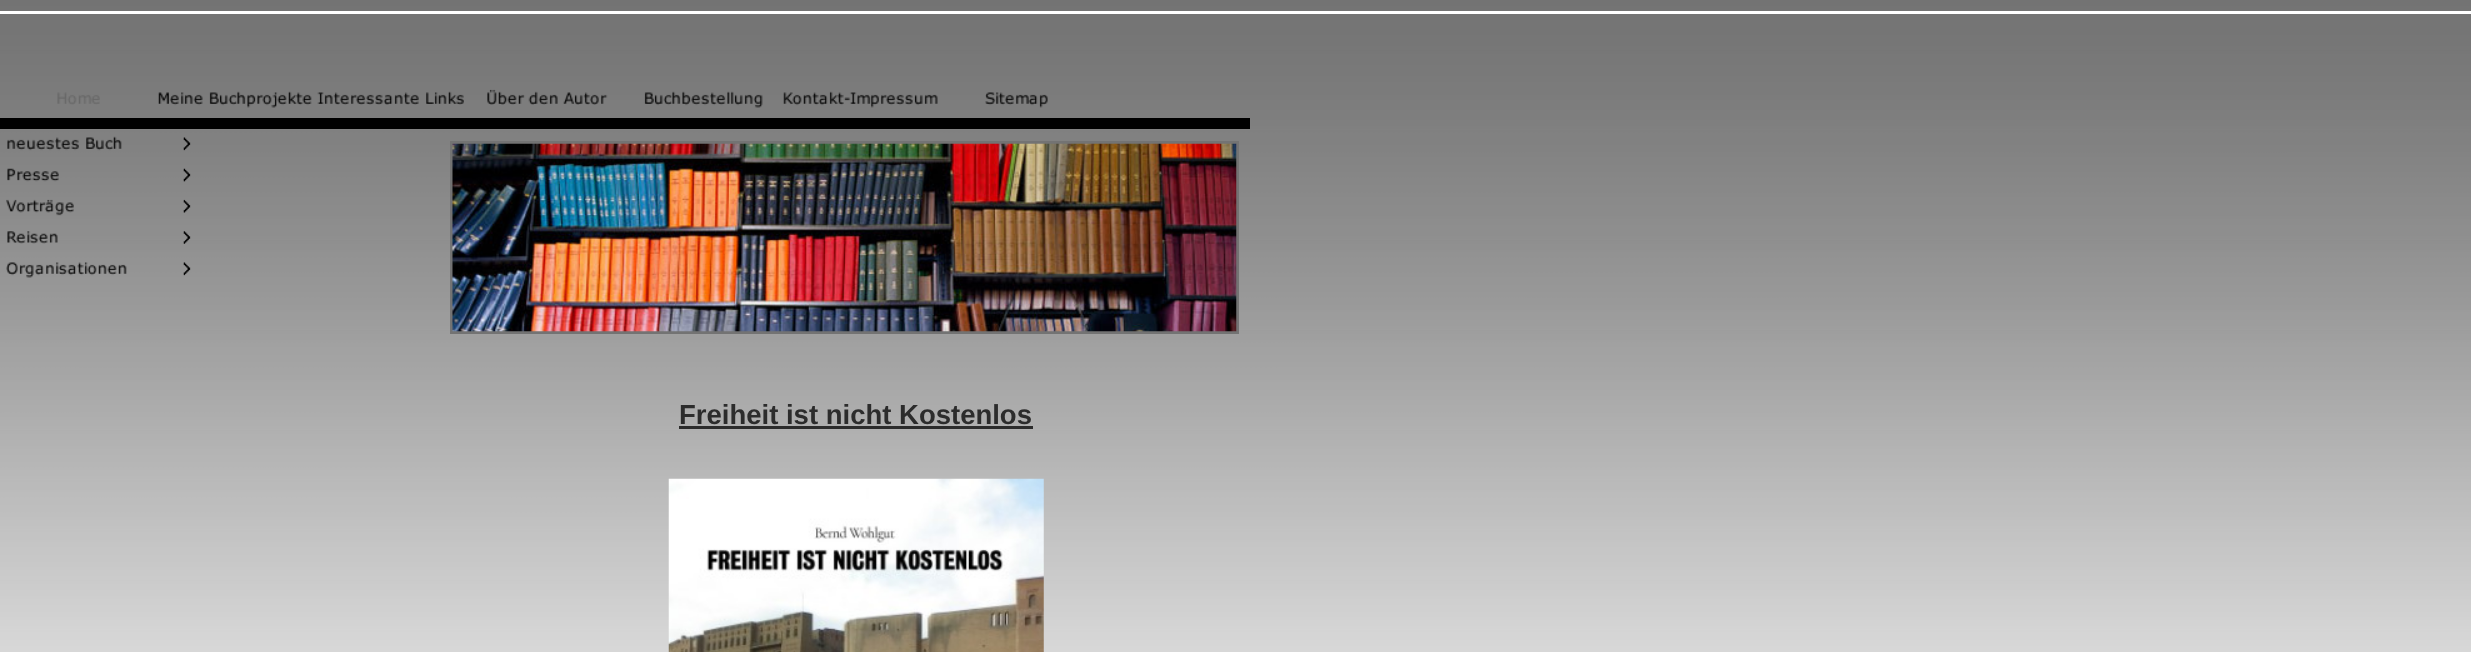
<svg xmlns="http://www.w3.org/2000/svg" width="2471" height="652">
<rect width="100%" height="100%" fill="#fff"/>
<image x="0" y="0" width="2471" height="652" href="media/1.png"/>
<rect y="11" width="2471" height="3" fill="#fff"/>
<rect y="118" width="1250" height="11" fill="#000"/>
<image x="57" y="92" width="43" height="13" href="media/2.png"/>
<image x="158" y="91" width="154" height="17" href="media/3.png"/>
<image x="317" y="91" width="147" height="14" href="media/4.png"/>
<image x="487" y="89" width="121" height="16" href="media/5.png"/>
<image x="644" y="91" width="119" height="17" href="media/6.png"/>
<image x="783" y="91" width="155" height="17" href="media/7.png"/>
<image x="985" y="92" width="63" height="16" href="media/8.png"/>
<image x="7" y="136" width="184" height="15" href="media/9.png"/>
<image x="7" y="168" width="184" height="14" href="media/10.png"/>
<image x="6" y="199" width="185" height="17" href="media/11.png"/>
<image x="7" y="231" width="184" height="13" href="media/12.png"/>
<image x="6" y="262" width="185" height="16" href="media/13.png"/>
<rect x="451.5" y="142.5" width="786" height="190" fill="none" stroke="#737373" stroke-width="3"/>
<image x="452" y="143" width="785" height="189" href="media/14.png"/>
<text x="679" y="424" style="font-family:Liberation Sans;font-size:27.5px;font-weight:bold;fill:#2c2c2c">Freiheit ist nicht Kostenlos</text>
<rect x="679" y="426" width="354" height="3" fill="#2c2c2c"/>
<image x="668" y="478" width="376" height="174" href="media/15.png"/>
</svg>
